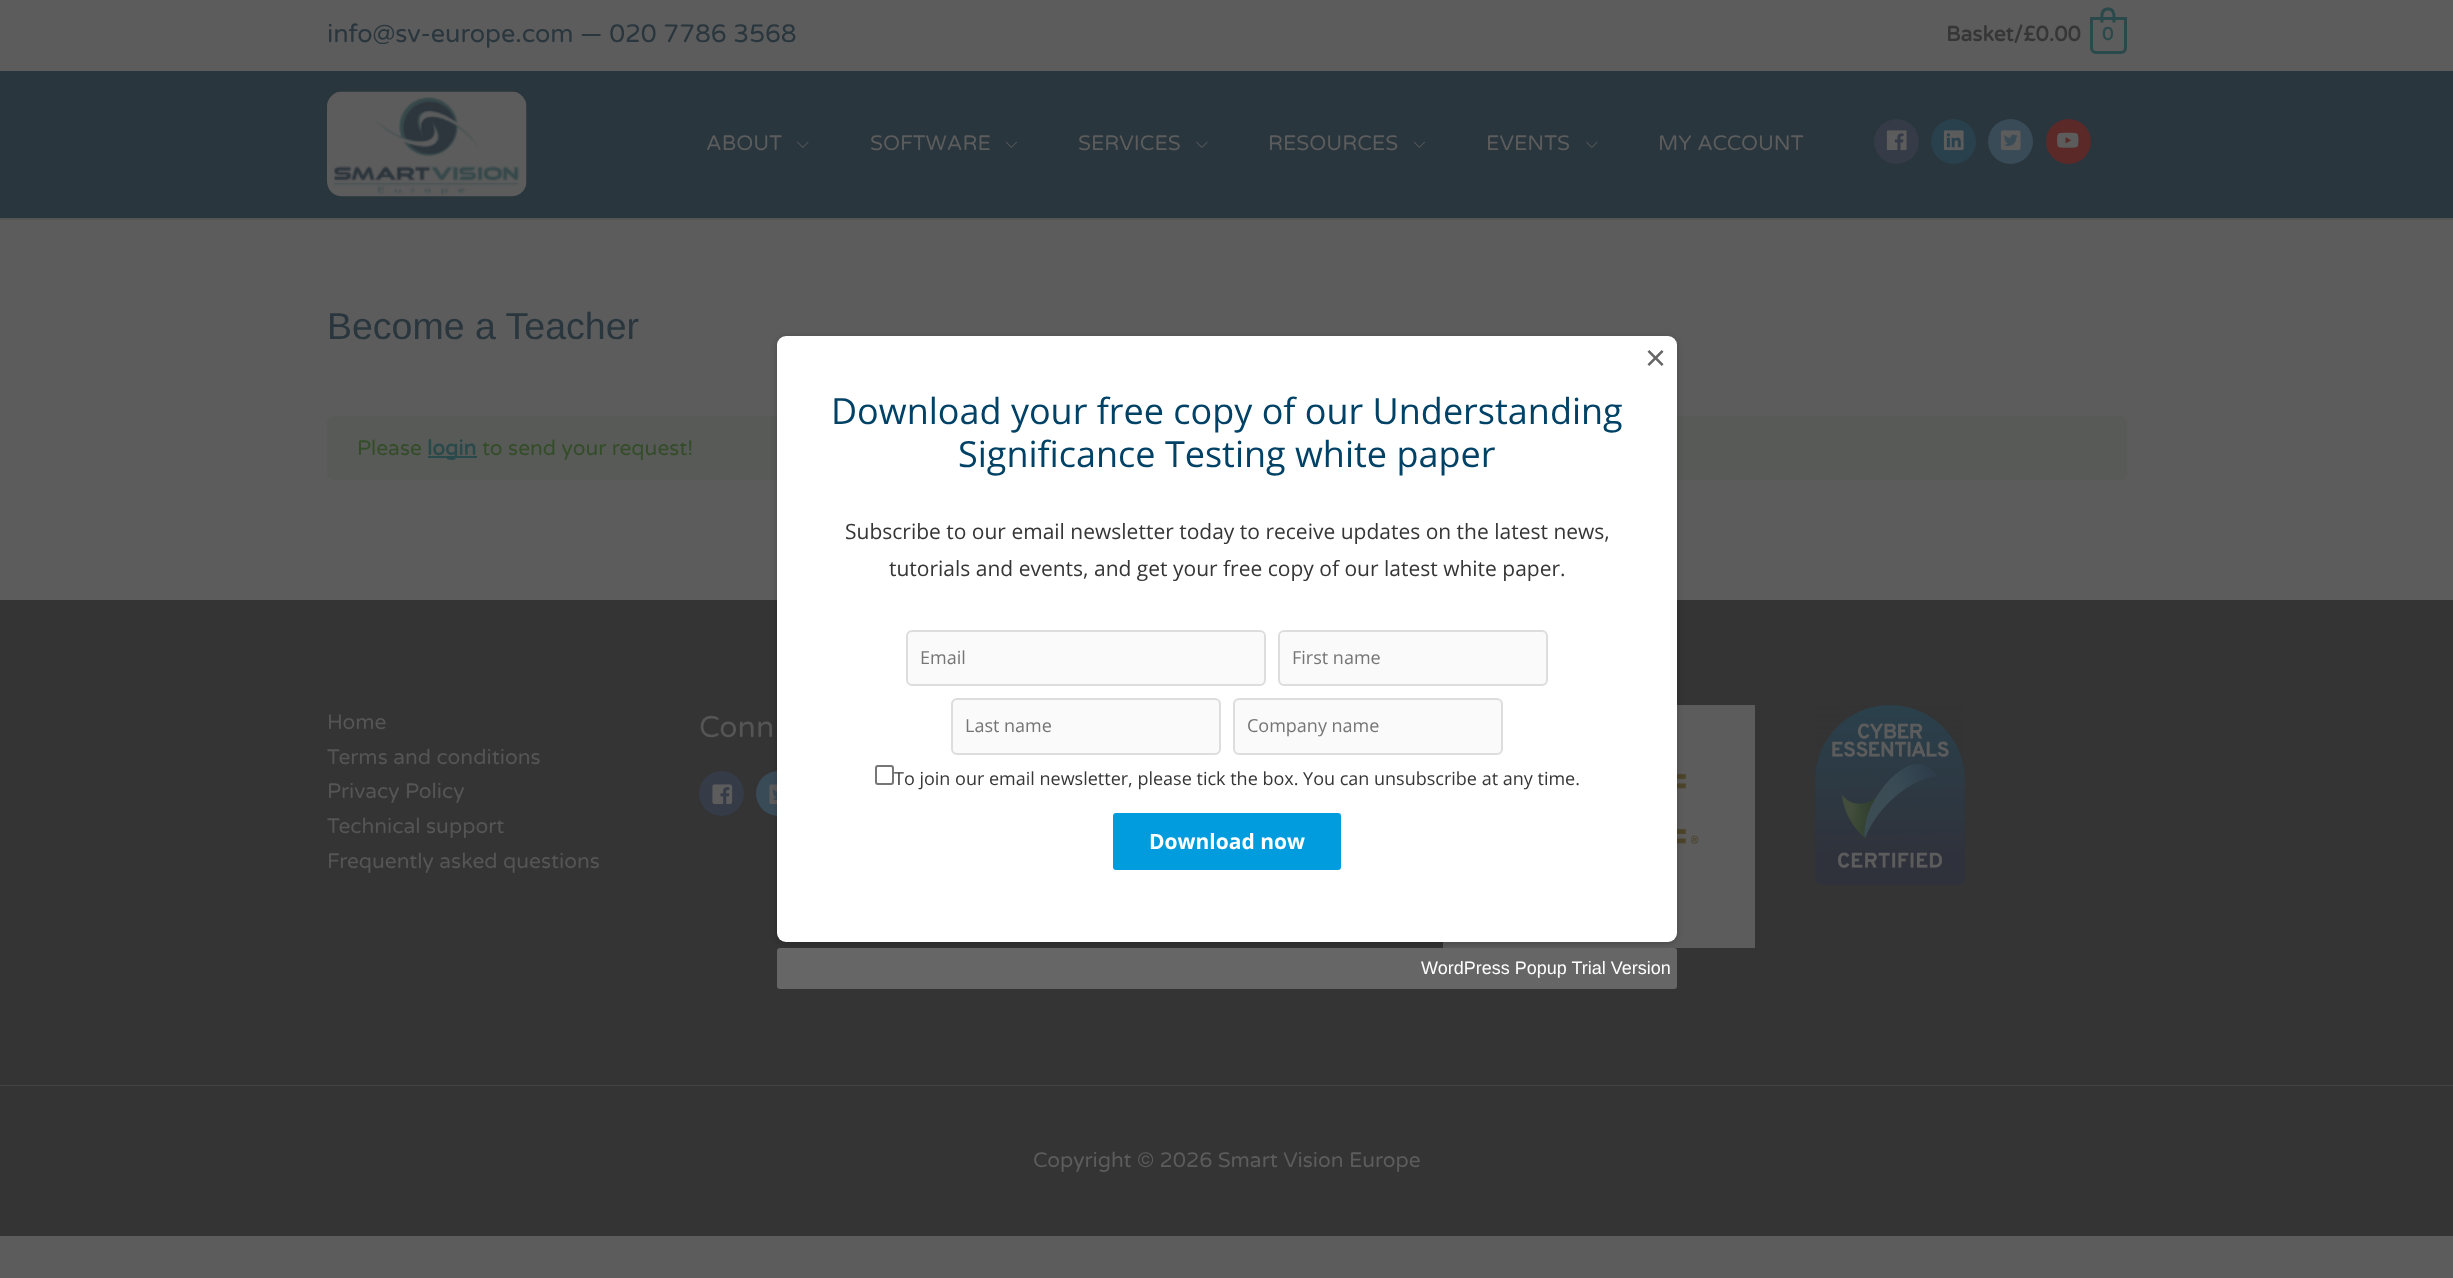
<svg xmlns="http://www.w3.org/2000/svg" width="2453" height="1278">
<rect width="100%" height="100%" fill="#5c5c5c"/>
<text x="327" y="42" style="font-family:Varela Round;font-size:25.25px;fill:#29363d">info@sv-europe.com — 020 7786 3568</text>
<text x="1946" y="41" style="font-family:Varela Round;font-size:21px;font-weight:bold;fill:#363636">Basket/£0.00</text>
<path d="M2091.5 18.5h34v29.5c0 2.5-2 4.5-4.5 4.5h-25c-2.5 0-4.5-2-4.5-4.5z" fill="none" stroke="#29494b" stroke-width="3"/>
<path d="M2108 7.5c8.5 0 7.5 9 7.5 15h-15c0-6-1.5-15 7.5-15zm0 3c6 0 4.5 8 4.5 12h-9c0-4-1.5-12 4.5-12z" fill="#29494b" fill-rule="evenodd"/>
<text x="2102" y="40" style="font-family:Varela Round;font-size:18px;font-weight:bold;fill:#29494b">0</text>
<rect y="71" width="2453" height="147" fill="#29363d"/>
<rect y="218" width="2453" height="2" fill="#555"/>
<image x="327" y="91" width="200" height="106" href="media/1.png"/>
<text x="706" y="150" style="font-family:Varela Round;font-size:21px;fill:#5c5c5c">ABOUT</text>
<image x="797" y="141" width="12" height="7" href="media/2.png"/>
<text x="870" y="150" style="font-family:Varela Round;font-size:21px;fill:#5c5c5c">SOFTWARE</text>
<image x="1005" y="141" width="12" height="7" href="media/3.png"/>
<text x="1078" y="150" style="font-family:Varela Round;font-size:21px;fill:#5c5c5c">SERVICES</text>
<image x="1196" y="141" width="12" height="7" href="media/2.png"/>
<text x="1268" y="150" style="font-family:Varela Round;font-size:21px;fill:#5c5c5c">RESOURCES</text>
<image x="1413" y="141" width="12" height="7" href="media/3.png"/>
<text x="1486" y="150" style="font-family:Varela Round;font-size:21px;fill:#5c5c5c">EVENTS</text>
<image x="1586" y="141" width="12" height="7" href="media/2.png"/>
<text x="1658" y="150" style="font-family:Varela Round;font-size:21px;fill:#5c5c5c">MY ACCOUNT</text>
<circle cx="1896.5" cy="141.5" r="22.5" fill="#353b47"/>
<image x="1886" y="130" width="21" height="21" href="media/4.png"/>
<circle cx="1953.5" cy="141.5" r="22.5" fill="#29414d"/>
<image x="1943" y="130" width="21" height="21" href="media/5.png"/>
<circle cx="2010.5" cy="141.5" r="22.5" fill="#3a4b58"/>
<image x="2000" y="130" width="21" height="21" href="media/6.png"/>
<circle cx="2068.5" cy="141.5" r="22.5" fill="#5c2929"/>
<image x="2057" y="132" width="22" height="16" href="media/7.png"/>
<text x="327" y="339" style="font-family:Liberation Sans;font-size:37.5px;fill:#29363d">Become a Teacher</text>
<rect x="327" y="416" width="1800" height="64" rx="8" fill="#585a57"/>
<text x="357" y="455" style="font-family:Varela Round;font-size:21px;fill:#344d29">Please</text>
<rect x="428" y="456" width="49" height="2" fill="#29494b"/>
<text x="427" y="455" style="font-family:Varela Round;font-size:21px;font-weight:bold;fill:#29494b">login</text>
<text x="482" y="455" style="font-family:Varela Round;font-size:21px;fill:#344d29">to send your request!</text>
<rect y="600" width="2453" height="485" fill="#343434"/>
<text x="327" y="729" style="font-family:Varela Round;font-size:21px;fill:#555">Home</text>
<text x="327" y="764" style="font-family:Varela Round;font-size:21px;fill:#555">Terms and conditions</text>
<text x="327" y="798" style="font-family:Varela Round;font-size:21px;fill:#555">Privacy Policy</text>
<text x="327" y="833" style="font-family:Varela Round;font-size:21px;fill:#555">Technical support</text>
<text x="327" y="868" style="font-family:Varela Round;font-size:21px;fill:#555">Frequently asked questions</text>
<text x="699" y="737" style="font-family:Varela Round;font-size:30px;fill:#555">Conn</text>
<circle cx="721.5" cy="793.5" r="22.5" fill="#353b47"/>
<image x="712" y="784" width="21" height="21" href="media/8.png"/>
<circle cx="778.5" cy="793.5" r="22.5" fill="#3a4b58"/>
<image x="769" y="784" width="8" height="21" href="media/9.png"/>
<image x="1443" y="705" width="312" height="246" href="media/10.png"/>
<image x="1815" y="705" width="150" height="180" href="media/11.png"/>
<rect y="1085" width="2453" height="1" fill="#414141"/>
<rect y="1086" width="2453" height="150" fill="#343434"/>
<text x="1033" y="1167" style="font-family:Varela Round;font-size:21px;fill:#5c5c5c">Copyright © 2026 Smart Vision Europe</text>
<rect x="777" y="338" width="900" height="606" rx="9" fill="#00000033" filter="blur(3px)"/>
<rect x="777" y="336" width="900" height="606" rx="9" fill="#fff"/>
<text x="1645" y="370" style="font-family:Liberation Sans;font-size:36px;fill:#666">×</text>
<text x="831" y="424" style="font-family:Open Sans;font-size:36px;fill:#004166">Download your free copy of our Understanding</text>
<text x="958" y="467" style="font-family:Open Sans;font-size:36px;fill:#004166">Significance Testing white paper</text>
<text x="845" y="539" style="font-family:Open Sans;font-size:21px;fill:#363636">Subscribe to our email newsletter today to receive updates on the latest news,</text>
<text x="889" y="576" style="font-family:Open Sans;font-size:21px;fill:#363636">tutorials and events, and get your free copy of our latest white paper.</text>
<rect x="907" y="631" width="358" height="54" rx="5" fill="#fafafa" stroke="#ddd" stroke-width="2"/>
<text x="920" y="664" style="font-family:Open Sans;font-size:18px;fill:#757575">Email</text>
<rect x="1279" y="631" width="268" height="54" rx="5" fill="#fafafa" stroke="#ddd" stroke-width="2"/>
<text x="1292" y="664" style="font-family:Open Sans;font-size:18px;fill:#757575">First name</text>
<rect x="952" y="699" width="268" height="55" rx="5" fill="#fafafa" stroke="#ddd" stroke-width="2"/>
<text x="965" y="732" style="font-family:Open Sans;font-size:18px;fill:#757575">Last name</text>
<rect x="1234" y="699" width="268" height="55" rx="5" fill="#fafafa" stroke="#ddd" stroke-width="2"/>
<text x="1247" y="732" style="font-family:Open Sans;font-size:18px;fill:#757575">Company name</text>
<rect x="876" y="766" width="17" height="18" rx="2" fill="none" stroke="#767676" stroke-width="2"/>
<text x="894" y="785" style="font-family:Open Sans;font-size:18px;fill:#363636">To join our email newsletter, please tick the box. You can unsubscribe at any time.</text>
<rect x="1113" y="813" width="228" height="57" rx="3" fill="#009cde"/>
<text x="1149" y="849" style="font-family:Open Sans;font-size:21px;font-weight:bold;fill:#fff">Download now</text>
<rect x="777" y="948" width="900" height="41" rx="3" fill="#666"/>
<text x="1421" y="974" style="font-family:Liberation Sans;font-size:18px;fill:#fff">WordPress Popup Trial Version</text>
</svg>
